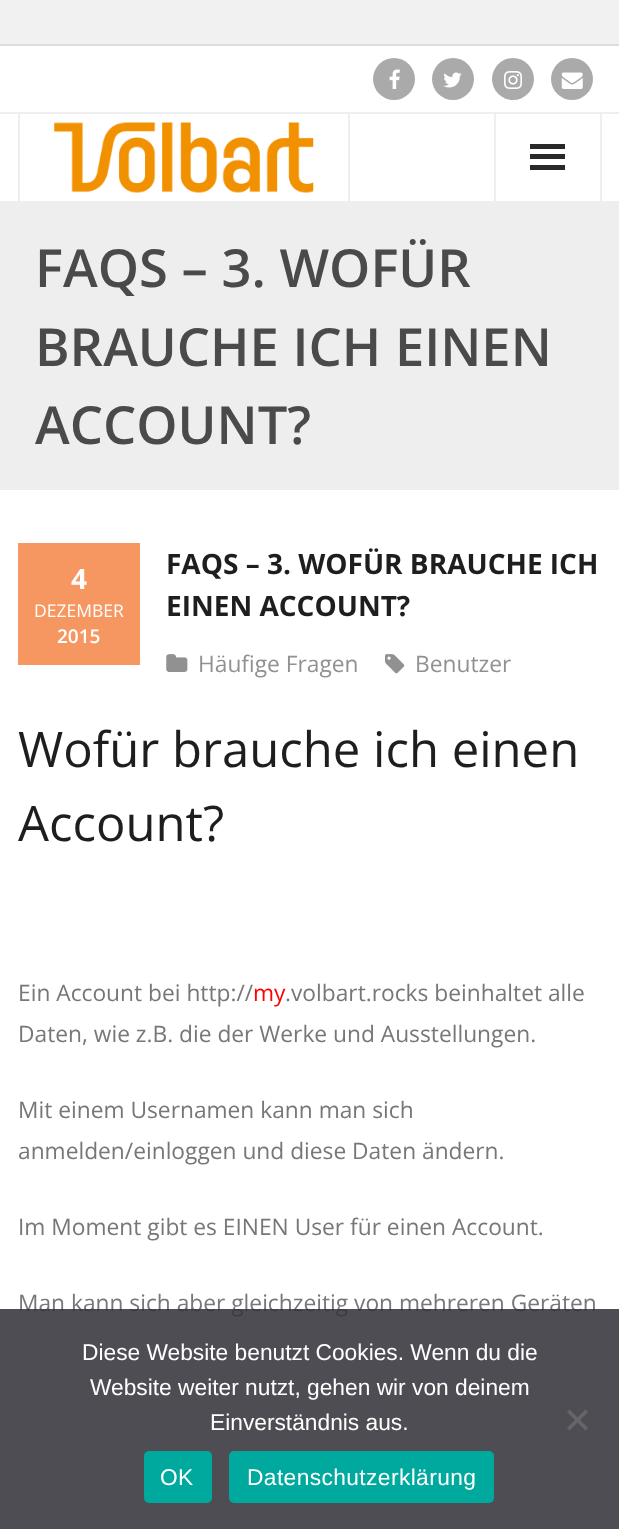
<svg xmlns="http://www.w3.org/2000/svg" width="619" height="1529">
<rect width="100%" height="100%" fill="#f1f1f1"/>
<rect y="46" width="619" height="1483" fill="#fff"/>
<rect y="44" width="619" height="2" fill="#ddd"/>
<rect y="112" width="619" height="2" fill="#eee"/>
<circle cx="394" cy="79" r="21" fill="#aaa"/>
<image x="389" y="69" width="11" height="20" href="media/1.png"/>
<circle cx="453" cy="79" r="21" fill="#aaa"/>
<image x="443" y="72" width="19" height="16" href="media/2.png"/>
<circle cx="513" cy="79" r="21" fill="#aaa"/>
<image x="504" y="71" width="18" height="18" href="media/3.png"/>
<circle cx="572" cy="79" r="21" fill="#aaa"/>
<image x="561" y="72" width="22" height="17" href="media/4.png"/>
<rect x="348" y="114" width="2" height="87" fill="#eee"/>
<rect x="18" y="114" width="2" height="87" fill="#eee"/>
<image x="54" y="122" width="260" height="71" href="media/5.png"/>
<rect x="600" y="114" width="2" height="87" fill="#eee"/>
<rect x="494" y="114" width="2" height="87" fill="#eee"/>
<rect x="530" y="144" width="35" height="5" fill="#292929"/>
<rect x="530" y="154" width="35" height="5" fill="#292929"/>
<rect x="530" y="165" width="35" height="5" fill="#292929"/>
<rect y="201" width="619" height="289" fill="#efeeee"/>
<text x="35" y="287" style="font-family:Open Sans;font-size:52.5px;font-weight:600;fill:#4b4a4b">FAQS – 3. WOFÜR</text>
<text x="35" y="366" style="font-family:Open Sans;font-size:52.5px;font-weight:600;fill:#4b4a4b">BRAUCHE ICH EINEN</text>
<text x="35" y="444" style="font-family:Open Sans;font-size:52.5px;font-weight:600;fill:#4b4a4b">ACCOUNT?</text>
<text x="166" y="574" style="font-family:Open Sans;font-size:28px;font-weight:bold;fill:#1e1e1e">FAQS – 3. WOFÜR BRAUCHE ICH</text>
<text x="166" y="616" style="font-family:Open Sans;font-size:28px;font-weight:bold;fill:#1e1e1e">EINEN ACCOUNT?</text>
<rect x="18" y="543" width="122" height="122" fill="#f69762"/>
<text x="71" y="589" style="font-family:Open Sans;font-size:28px;font-weight:bold;fill:#fff">4</text>
<text x="34" y="617" style="font-family:Open Sans;font-size:17.5px;fill:#fff">DEZEMBER</text>
<text x="57" y="643" style="font-family:Open Sans;font-size:19px;font-weight:600;fill:#fff">2015</text>
<image x="166" y="654" width="22" height="18" href="media/6.png"/>
<text x="198" y="672" style="font-family:Open Sans;font-size:22.75px;fill:#919191">Häufige Fragen</text>
<image x="385" y="654" width="20" height="20" href="media/7.png"/>
<text x="415" y="672" style="font-family:Open Sans;font-size:22.75px;fill:#919191">Benutzer</text>
<text x="18" y="767" style="font-family:Open Sans;font-size:49px;fill:#1e1e1e">Wofür brauche ich einen</text>
<text x="18" y="841" style="font-family:Open Sans;font-size:49px;fill:#1e1e1e">Account?</text>
<text x="18" y="1001" style="font-family:Open Sans;font-size:22.75px;fill:#777">Ein Account bei http://</text>
<text x="253" y="1001" style="font-family:Open Sans;font-size:22.75px;fill:#f00">my</text>
<text x="285" y="1001" style="font-family:Open Sans;font-size:22.75px;fill:#777">.volbart.rocks beinhaltet alle</text>
<text x="18" y="1042" style="font-family:Open Sans;font-size:22.75px;fill:#777">Daten, wie z.B. die der Werke und Ausstellungen.</text>
<text x="18" y="1118" style="font-family:Open Sans;font-size:22.75px;fill:#777">Mit einem Usernamen kann man sich</text>
<text x="18" y="1159" style="font-family:Open Sans;font-size:22.75px;fill:#777">anmelden/einloggen und diese Daten ändern.</text>
<text x="18" y="1235" style="font-family:Open Sans;font-size:22.75px;fill:#777">Im Moment gibt es EINEN User für einen Account.</text>
<text x="18" y="1311" style="font-family:Open Sans;font-size:22.75px;fill:#777">Man kann sich aber gleichzeitig von mehreren Geräten</text>
<rect y="1309" width="619" height="220" fill="#32323ade"/>
<text x="82" y="1360" style="font-family:Liberation Sans;font-size:22.75px;fill:#fff">Diese Website benutzt Cookies. Wenn du die</text>
<text x="90" y="1395" style="font-family:Liberation Sans;font-size:22.75px;fill:#fff">Website weiter nutzt, gehen wir von deinem</text>
<text x="210" y="1430" style="font-family:Liberation Sans;font-size:22.75px;fill:#fff">Einverständnis aus.</text>
<path d="M585.5 1409.5l2.5 2.5l-18.5 18.5l-2.5-2.5z" fill="#66666a"/>
<path d="M567 1412l2.5-2.5l18.5 18.5l-2.5 2.5z" fill="#66666a"/>
<rect x="144" y="1451" width="68" height="52" rx="5" fill="#00a99d"/>
<text x="160" y="1485" style="font-family:Liberation Sans;font-size:22.75px;letter-spacing:0.4px;fill:#fff">OK</text>
<rect x="229" y="1451" width="265" height="52" rx="5" fill="#00a99d"/>
<text x="247" y="1485" style="font-family:Liberation Sans;font-size:22.75px;letter-spacing:0.4px;fill:#fff">Datenschutzerklärung</text>
</svg>
